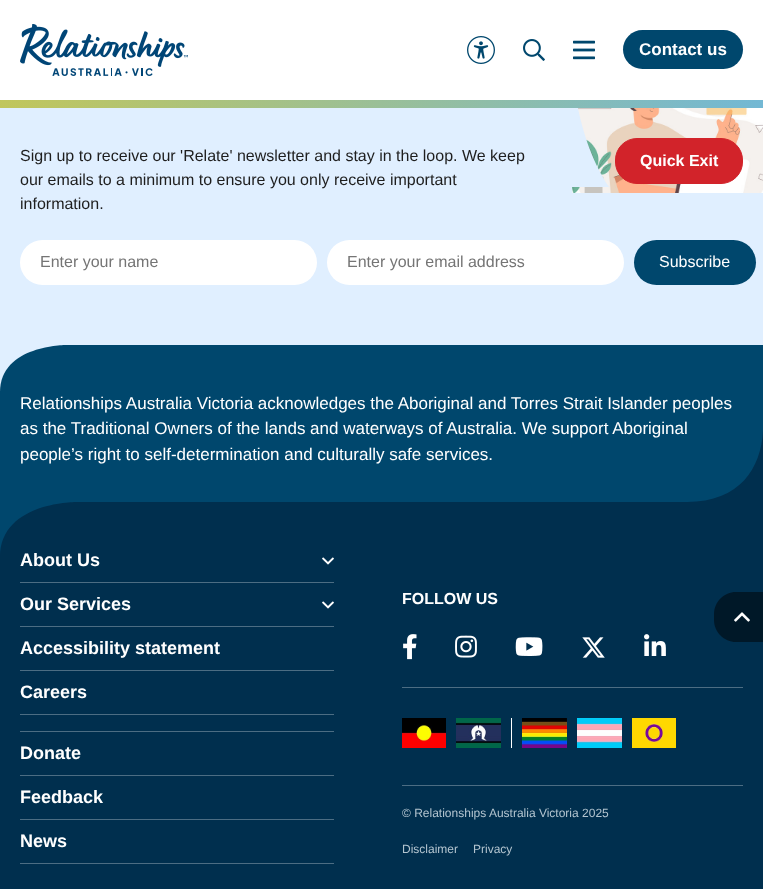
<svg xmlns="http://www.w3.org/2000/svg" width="763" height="889">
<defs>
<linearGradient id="g1" gradientUnits="userSpaceOnUse" x1="763" y1="104" x2="-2.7" y2="104"><stop offset="0" stop-color="#73b8d4"/><stop offset="1" stop-color="#c1c65b"/></linearGradient>
</defs>
<rect width="100%" height="100%" fill="#fff"/>
<rect y="108" width="763" height="281" fill="#e0efff"/>
<image x="572" y="108" width="191" height="85" href="media/5.png"/>
<path d="M609 187h-37v-131c0 0 0 75 37 131z" fill="#e0efff"/>
<rect x="572" y="60" width="5" height="40" fill="#fff"/>
<image x="20" y="24" width="168" height="52" href="media/1.png"/>
<image x="467" y="36" width="28" height="28" href="media/2.png"/>
<image x="523" y="39" width="22" height="22" href="media/3.png"/>
<image x="573" y="40" width="22" height="20" href="media/4.png"/>
<rect x="623" y="30" width="120" height="39" rx="19.5" fill="#00476d"/>
<text x="639" y="55" style="font-family:Liberation Sans;font-size:17px;font-weight:bold;fill:#fff">Contact us</text>
<rect y="100" width="763" height="8" fill="url(#g1)"/>
<rect x="615.5" y="138.5" width="127" height="45" rx="21.5" fill="#d2232a" stroke="#d2232a"/>
<text x="640" y="166" style="font-family:Liberation Sans;font-size:16px;font-weight:bold;fill:#fff">Quick Exit</text>
<text x="20" y="161" style="font-family:Liberation Sans;font-size:16px;fill:#1e1e1e">Sign up to receive our 'Relate' newsletter and stay in the loop. We keep</text>
<text x="20" y="185" style="font-family:Liberation Sans;font-size:16px;fill:#1e1e1e">our emails to a minimum to ensure you only receive important</text>
<text x="20" y="209" style="font-family:Liberation Sans;font-size:16px;fill:#1e1e1e">information.</text>
<rect x="20" y="240" width="297" height="45" rx="22.5" fill="#fff"/>
<text x="40" y="267" style="font-family:Liberation Sans;font-size:16px;fill:#757575">Enter your name</text>
<rect x="327" y="240" width="297" height="45" rx="22.5" fill="#fff"/>
<text x="347" y="267" style="font-family:Liberation Sans;font-size:16px;fill:#757575">Enter your email address</text>
<rect x="634" y="240" width="122" height="45" rx="22.5" fill="#00476d"/>
<text x="659" y="267" style="font-family:Liberation Sans;font-size:16px;fill:#fff">Subscribe</text>
<rect y="391" width="763" height="111" fill="#00476d"/>
<path d="M0 392c0-47 66-47 66-47v47z" fill="#00476d"/>
<rect x="66" y="345" width="697" height="46" fill="#00476d"/>
<text x="20" y="409" style="font-family:Liberation Sans;font-size:17px;fill:#fff">Relationships Australia Victoria acknowledges the Aboriginal and Torres Strait Islander peoples</text>
<text x="20" y="434" style="font-family:Liberation Sans;font-size:17px;fill:#fff">as the Traditional Owners of the lands and waterways of Australia. We support Aboriginal</text>
<text x="20" y="460" style="font-family:Liberation Sans;font-size:17px;fill:#fff">people’s right to self-determination and culturally safe services.</text>
<rect y="502" width="763" height="387" fill="#002f4e"/>
<text x="20" y="566" style="font-family:Liberation Sans;font-size:18px;font-weight:bold;fill:#fff">About Us</text>
<path d="M76 502h-76v55c0-55 76-55 76-55z" fill="#00476d"/>
<path d="M687 502c53 0 74-34 76-71v71z" fill="#002f4e"/>
<rect x="20" y="582" width="314" height="1" fill="#4c6d83"/>
<image x="322" y="557" width="12" height="8" href="media/6.png"/>
<rect x="20" y="626" width="314" height="1" fill="#4c6d83"/>
<text x="20" y="610" style="font-family:Liberation Sans;font-size:18px;font-weight:bold;fill:#fff">Our Services</text>
<image x="322" y="601" width="12" height="8" href="media/6.png"/>
<rect x="20" y="670" width="314" height="1" fill="#4c6d83"/>
<text x="20" y="654" style="font-family:Liberation Sans;font-size:18px;font-weight:bold;fill:#fff">Accessibility statement</text>
<rect x="20" y="714" width="314" height="1" fill="#4c6d83"/>
<text x="20" y="698" style="font-family:Liberation Sans;font-size:18px;font-weight:bold;fill:#fff">Careers</text>
<rect x="20" y="731" width="314" height="1" fill="#4c6d83"/>
<rect x="20" y="775" width="314" height="1" fill="#4c6d83"/>
<text x="20" y="759" style="font-family:Liberation Sans;font-size:18px;font-weight:bold;fill:#fff">Donate</text>
<rect x="20" y="819" width="314" height="1" fill="#4c6d83"/>
<text x="20" y="803" style="font-family:Liberation Sans;font-size:18px;font-weight:bold;fill:#fff">Feedback</text>
<rect x="20" y="863" width="314" height="1" fill="#4c6d83"/>
<text x="20" y="847" style="font-family:Liberation Sans;font-size:18px;font-weight:bold;fill:#fff">News</text>
<rect x="402" y="687" width="341" height="1" fill="#4c6d83"/>
<text x="402" y="604" style="font-family:Liberation Sans;font-size:16px;font-weight:bold;fill:#fff">FOLLOW US</text>
<image x="403" y="634" width="14" height="26" href="media/7.png"/>
<image x="455" y="635" width="22" height="23" href="media/8.png"/>
<image x="515" y="637" width="28" height="19" href="media/9.png"/>
<image x="582" y="637" width="23" height="21" href="media/10.png"/>
<image x="644" y="634" width="22" height="22" href="media/11.png"/>
<image x="402" y="718" width="44" height="30" href="media/12.png"/>
<rect x="511" y="718" width="1" height="30" fill="#fff"/>
<image x="456" y="718" width="45" height="30" href="media/13.png"/>
<image x="522" y="718" width="45" height="30" href="media/14.png"/>
<image x="577" y="718" width="45" height="30" href="media/15.png"/>
<image x="632" y="718" width="44" height="30" href="media/16.png"/>
<rect x="402" y="785" width="341" height="1" fill="#4c6d83"/>
<text x="402" y="817" style="font-family:Liberation Sans;font-size:12px;fill:#b2c4cf">© Relationships Australia Victoria 2025</text>
<text x="402" y="853" style="font-family:Liberation Sans;font-size:12px;fill:#b2c4cf">Disclaimer</text>
<text x="473" y="853" style="font-family:Liberation Sans;font-size:12px;fill:#b2c4cf">Privacy</text>
<path d="M736 592h27v50h-27c-12 0-22-10-22-22v-6c0-12 10-22 22-22z" fill="#001828"/>
<image x="734" y="612" width="16" height="10" href="media/17.png"/>
</svg>
